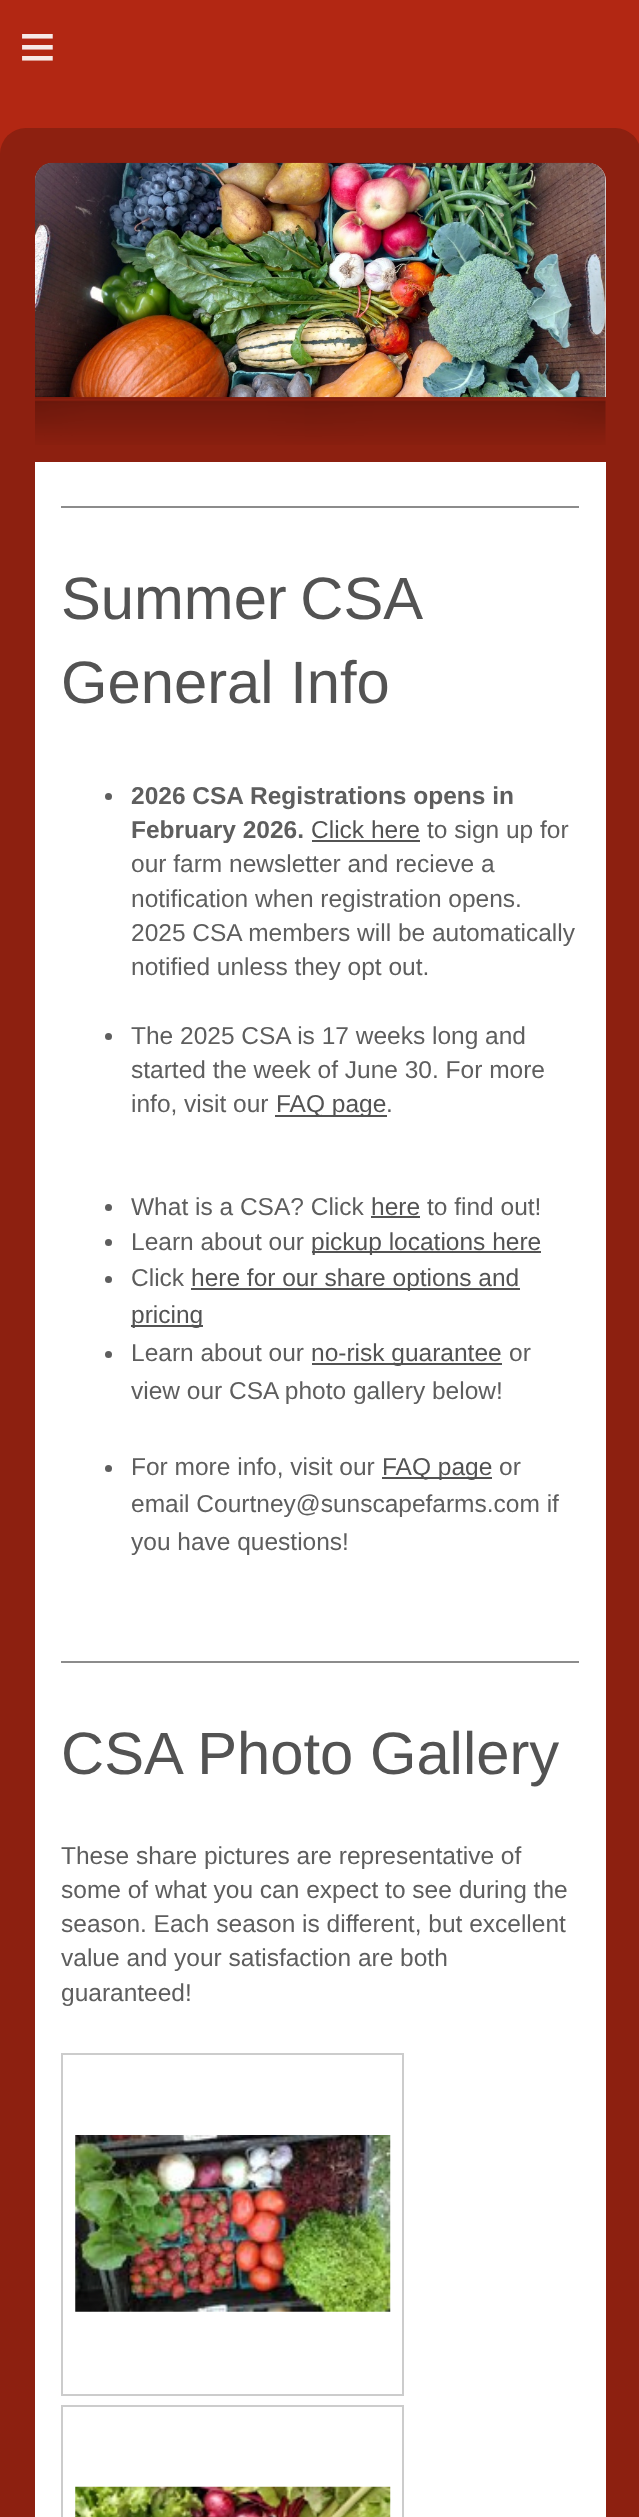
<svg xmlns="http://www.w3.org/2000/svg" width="639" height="2517">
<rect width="100%" height="100%" fill="#b22713"/>
<text x="19" y="68" style="font-family:Liberation Sans;font-size:63px;letter-spacing:18px;fill:#f7e9e7">≡</text>
<rect y="128" width="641" height="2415" rx="26" fill="#8d2010"/>
<path d="M53 163h535c10 0 18 8 18 18v216h-571v-216c0-10 8-18 18-18z" fill="#eee"/>
<image x="35" y="397" width="571" height="48" href="media/2.png"/>
<image x="35" y="162" width="571" height="236" href="media/1.png"/>
<rect x="35" y="462" width="571" height="2055" fill="#fff"/>
<rect x="61" y="506" width="518" height="2" fill="#8c8c8c"/>
<text x="61" y="619" word-spacing="-3" style="font-family:Liberation Sans;font-size:59.75px;fill:#535353">Summer CSA</text>
<text x="61" y="703" style="font-family:Liberation Sans;font-size:59.75px;fill:#535353">General Info</text>
<circle cx="108.5" cy="796.5" r="3.5" fill="#5e5e5e"/>
<text x="131" y="804" style="font-family:Liberation Sans;font-size:24.5px;font-weight:bold;fill:#5e5e5e">2026 CSA Registrations opens in</text>
<text x="131" y="838" style="font-family:Liberation Sans;font-size:24.5px;font-weight:bold;fill:#5e5e5e">February 2026.</text>
<text x="311" y="838" style="font-family:Liberation Sans;font-size:24.5px;fill:#535353">Click here</text>
<rect x="312" y="840" width="108" height="2" fill="#535353"/>
<text x="427" y="838" style="font-family:Liberation Sans;font-size:24.5px;fill:#5e5e5e">to sign up for</text>
<text x="131" y="872" style="font-family:Liberation Sans;font-size:24.5px;fill:#5e5e5e">our farm newsletter and recieve a</text>
<text x="131" y="907" style="font-family:Liberation Sans;font-size:24.5px;fill:#5e5e5e">notification when registration opens.</text>
<text x="131" y="941" style="font-family:Liberation Sans;font-size:24.5px;fill:#5e5e5e">2025 CSA members will be automatically</text>
<text x="131" y="975" style="font-family:Liberation Sans;font-size:24.5px;fill:#5e5e5e">notified unless they opt out.</text>
<circle cx="108.5" cy="1036.5" r="3.5" fill="#5e5e5e"/>
<text x="131" y="1044" style="font-family:Liberation Sans;font-size:24.5px;fill:#5e5e5e">The 2025 CSA is 17 weeks long and</text>
<text x="131" y="1078" style="font-family:Liberation Sans;font-size:24.5px;fill:#5e5e5e">started the week of June 30. For more</text>
<text x="131" y="1112" style="font-family:Liberation Sans;font-size:24.5px;fill:#5e5e5e">info, visit our</text>
<rect x="275" y="1115" width="112" height="2" fill="#535353"/>
<text x="276" y="1112" style="font-family:Liberation Sans;font-size:24.5px;fill:#535353">FAQ page</text>
<text x="386" y="1112" style="font-family:Liberation Sans;font-size:24.5px;fill:#5e5e5e">.</text>
<circle cx="108.5" cy="1207.5" r="3.5" fill="#5e5e5e"/>
<text x="131" y="1215" style="font-family:Liberation Sans;font-size:24.5px;fill:#5e5e5e">What is a CSA? Click</text>
<text x="371" y="1215" style="font-family:Liberation Sans;font-size:24.5px;fill:#535353">here</text>
<rect x="371" y="1216" width="49" height="2" fill="#535353"/>
<text x="427" y="1215" style="font-family:Liberation Sans;font-size:24.5px;fill:#5e5e5e">to find out!</text>
<circle cx="108.5" cy="1242.5" r="3.5" fill="#5e5e5e"/>
<text x="131" y="1250" style="font-family:Liberation Sans;font-size:24.5px;fill:#5e5e5e">Learn about our</text>
<rect x="312" y="1251" width="229" height="2" fill="#535353"/>
<text x="311" y="1250" style="font-family:Liberation Sans;font-size:24.5px;fill:#535353">pickup locations here</text>
<circle cx="108.5" cy="1279.5" r="3.5" fill="#5e5e5e"/>
<text x="131" y="1286" style="font-family:Liberation Sans;font-size:24.5px;fill:#5e5e5e">Click</text>
<rect x="191" y="1288" width="329" height="2" fill="#535353"/>
<text x="191" y="1286" style="font-family:Liberation Sans;font-size:24.5px;fill:#535353">here for our share options and</text>
<rect x="131" y="1325" width="72" height="2" fill="#535353"/>
<text x="131" y="1323" style="font-family:Liberation Sans;font-size:24.5px;fill:#535353">pricing</text>
<circle cx="108.5" cy="1354.5" r="3.5" fill="#5e5e5e"/>
<text x="131" y="1361" style="font-family:Liberation Sans;font-size:24.5px;fill:#5e5e5e">Learn about our</text>
<rect x="312" y="1363" width="190" height="2" fill="#535353"/>
<text x="311" y="1361" style="font-family:Liberation Sans;font-size:24.5px;fill:#535353">no-risk guarantee</text>
<text x="509" y="1361" style="font-family:Liberation Sans;font-size:24.5px;fill:#5e5e5e">or</text>
<text x="131" y="1399" style="font-family:Liberation Sans;font-size:24.5px;fill:#5e5e5e">view our CSA photo gallery below!</text>
<circle cx="108.5" cy="1468.5" r="3.5" fill="#5e5e5e"/>
<text x="131" y="1475" style="font-family:Liberation Sans;font-size:24.5px;fill:#5e5e5e">For more info, visit our</text>
<rect x="382" y="1477" width="110" height="2" fill="#535353"/>
<text x="382" y="1475" style="font-family:Liberation Sans;font-size:24.5px;fill:#535353">FAQ page</text>
<text x="499" y="1475" style="font-family:Liberation Sans;font-size:24.5px;fill:#5e5e5e">or</text>
<text x="131" y="1512" style="font-family:Liberation Sans;font-size:24.5px;fill:#5e5e5e">email Courtney@sunscapefarms.com if</text>
<text x="131" y="1550" style="font-family:Liberation Sans;font-size:24.5px;fill:#5e5e5e">you have questions!</text>
<rect x="61" y="1661" width="518" height="2" fill="#8c8c8c"/>
<text x="61" y="1774" style="font-family:Liberation Sans;font-size:59.75px;fill:#535353">CSA Photo Gallery</text>
<text x="61" y="1864" style="font-family:Liberation Sans;font-size:24.5px;fill:#5e5e5e">These share pictures are representative of</text>
<text x="61" y="1898" style="font-family:Liberation Sans;font-size:24.5px;fill:#5e5e5e">some of what you can expect to see during the</text>
<text x="61" y="1932" style="font-family:Liberation Sans;font-size:24.5px;fill:#5e5e5e">season. Each season is different, but excellent</text>
<text x="61" y="1966" style="font-family:Liberation Sans;font-size:24.5px;fill:#5e5e5e">value and your satisfaction are both</text>
<text x="61" y="2001" style="font-family:Liberation Sans;font-size:24.5px;fill:#5e5e5e">guaranteed!</text>
<rect x="62" y="2054" width="341" height="341" fill="none" stroke="#ccc" stroke-width="2"/>
<image x="75" y="2135" width="316" height="177" href="media/3.png"/>
<rect x="62" y="2406" width="341" height="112" fill="none" stroke="#ccc" stroke-width="2"/>
<image x="75" y="2486" width="316" height="31" href="media/4.png"/>
</svg>
